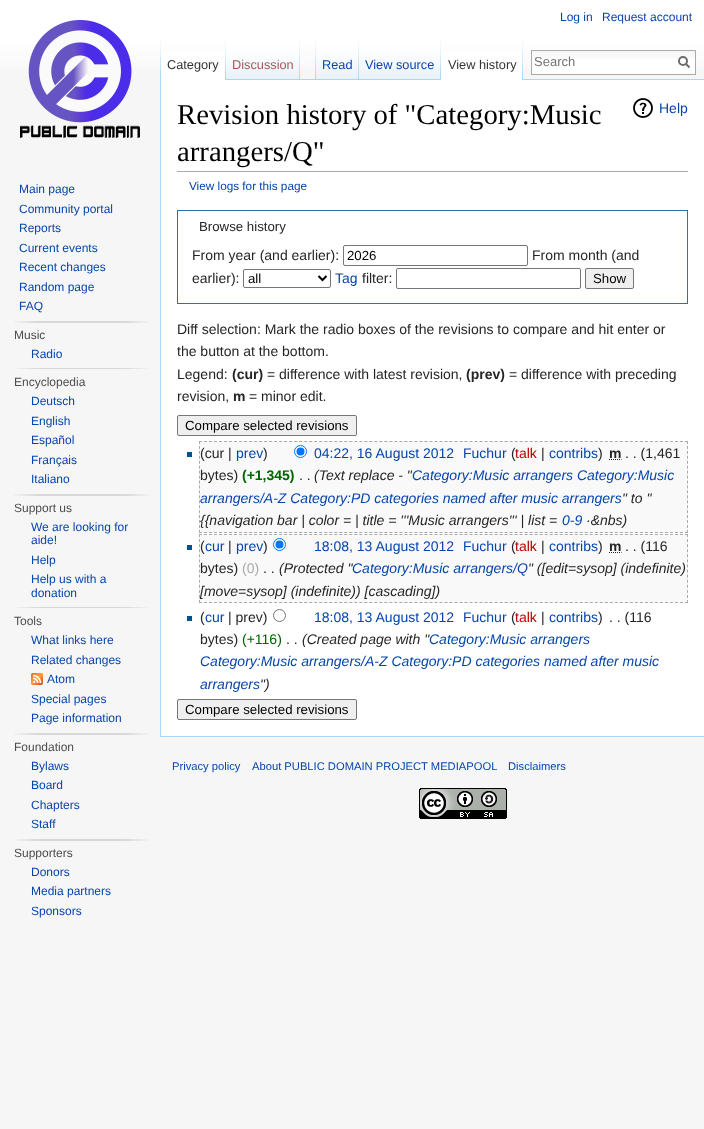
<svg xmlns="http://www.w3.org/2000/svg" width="704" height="1129">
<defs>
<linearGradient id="g1" gradientUnits="userSpaceOnUse" x1="352" y1="0" x2="352" y2="80"><stop offset="0.5" stop-color="#fff"/><stop offset="1" stop-color="#f6f6f6"/></linearGradient>
</defs>
<rect width="100%" height="100%" fill="#f6f6f6"/>
<rect width="704" height="69" fill="url(#g1)"/>
<text x="560" y="21" style="font-family:Liberation Sans;font-size:12px;fill:#0645ad">Log in</text>
<text x="602" y="21" style="font-family:Liberation Sans;font-size:12px;fill:#0645ad">Request account</text>
<image x="160" y="40" width="1" height="39" href="media/1.png"/>
<rect x="161" y="51" width="64" height="29" fill="#fff"/>
<image x="225" y="40" width="1" height="40" href="media/2.png"/>
<text x="167" y="69" style="font-family:Liberation Sans;font-size:12.75px;fill:#333">Category</text>
<image x="226" y="40" width="74" height="40" href="media/3.png"/>
<image x="299" y="40" width="1" height="39" href="media/4.png"/>
<text x="232" y="69" style="font-family:Liberation Sans;font-size:12.75px;fill:#a55858">Discussion</text>
<image x="315" y="40" width="1" height="39" href="media/1.png"/>
<rect x="300" y="79" width="404" height="1" fill="#a7d7f9"/>
<image x="316" y="40" width="43" height="40" href="media/5.png"/>
<image x="358" y="40" width="1" height="39" href="media/4.png"/>
<text x="322" y="69" style="font-family:Liberation Sans;font-size:12.75px;fill:#0645ad">Read</text>
<image x="359" y="40" width="82" height="40" href="media/6.png"/>
<image x="440" y="40" width="1" height="39" href="media/4.png"/>
<text x="365" y="69" style="font-family:Liberation Sans;font-size:12.75px;fill:#0645ad">View source</text>
<rect x="441" y="51" width="81" height="29" fill="#fff"/>
<image x="522" y="40" width="1" height="40" href="media/2.png"/>
<text x="448" y="69" style="font-family:Liberation Sans;font-size:12.75px;fill:#333">View history</text>
<rect x="532" y="59" width="163" height="15" fill="#fff"/>
<image x="532" y="51" width="163" height="8" href="media/7.png"/>
<rect x="531.5" y="50.5" width="164" height="24" fill="none" stroke="#aaa"/>
<text x="534" y="66" style="font-family:Liberation Sans;font-size:13px;fill:#757575">Search</text>
<path d="M689.5 67.5l-4-4" fill="none" stroke="#6c6c6c" stroke-width="2"/>
<circle cx="683" cy="61" r="4" fill="none" stroke="#6c6c6c" stroke-width="2"/>
<image x="20" y="20" width="120" height="118" href="media/8.png"/>
<text x="19" y="193" style="font-family:Liberation Sans;font-size:12px;fill:#0645ad">Main page</text>
<text x="19" y="213" style="font-family:Liberation Sans;font-size:12px;fill:#0645ad">Community portal</text>
<text x="19" y="232" style="font-family:Liberation Sans;font-size:12px;fill:#0645ad">Reports</text>
<text x="19" y="252" style="font-family:Liberation Sans;font-size:12px;fill:#0645ad">Current events</text>
<text x="19" y="271" style="font-family:Liberation Sans;font-size:12px;fill:#0645ad">Recent changes</text>
<text x="19" y="291" style="font-family:Liberation Sans;font-size:12px;fill:#0645ad">Random page</text>
<text x="19" y="310" style="font-family:Liberation Sans;font-size:12px;fill:#0645ad">FAQ</text>
<image x="14" y="321" width="135" height="2" href="media/9.png"/>
<text x="14" y="339" style="font-family:Liberation Sans;font-size:12px;fill:#4d4d4d">Music</text>
<text x="31" y="358" style="font-family:Liberation Sans;font-size:12px;fill:#0645ad">Radio</text>
<image x="14" y="368" width="135" height="1" href="media/10.png"/>
<text x="14" y="386" style="font-family:Liberation Sans;font-size:12px;fill:#4d4d4d">Encyclopedia</text>
<text x="31" y="405" style="font-family:Liberation Sans;font-size:12px;fill:#0645ad">Deutsch</text>
<text x="31" y="425" style="font-family:Liberation Sans;font-size:12px;fill:#0645ad">English</text>
<text x="31" y="444" style="font-family:Liberation Sans;font-size:12px;fill:#0645ad">Español</text>
<text x="31" y="464" style="font-family:Liberation Sans;font-size:12px;fill:#0645ad">Français</text>
<text x="31" y="483" style="font-family:Liberation Sans;font-size:12px;fill:#0645ad">Italiano</text>
<image x="14" y="494" width="135" height="2" href="media/9.png"/>
<text x="14" y="512" style="font-family:Liberation Sans;font-size:12px;fill:#4d4d4d">Support us</text>
<text x="31" y="531" style="font-family:Liberation Sans;font-size:12px;fill:#0645ad">We are looking for</text>
<text x="31" y="544" style="font-family:Liberation Sans;font-size:12px;fill:#0645ad">aide!</text>
<text x="31" y="564" style="font-family:Liberation Sans;font-size:12px;fill:#0645ad">Help</text>
<text x="31" y="583" style="font-family:Liberation Sans;font-size:12px;fill:#0645ad">Help us with a</text>
<text x="31" y="597" style="font-family:Liberation Sans;font-size:12px;fill:#0645ad">donation</text>
<image x="14" y="607" width="135" height="1" href="media/10.png"/>
<text x="14" y="625" style="font-family:Liberation Sans;font-size:12px;fill:#4d4d4d">Tools</text>
<text x="31" y="644" style="font-family:Liberation Sans;font-size:12px;fill:#0645ad">What links here</text>
<text x="31" y="664" style="font-family:Liberation Sans;font-size:12px;fill:#0645ad">Related changes</text>
<image x="31" y="673" width="12" height="12" href="media/11.png"/>
<text x="47" y="683" style="font-family:Liberation Sans;font-size:12px;fill:#0645ad">Atom</text>
<text x="31" y="703" style="font-family:Liberation Sans;font-size:12px;fill:#0645ad">Special pages</text>
<text x="31" y="722" style="font-family:Liberation Sans;font-size:12px;fill:#0645ad">Page information</text>
<image x="14" y="733" width="135" height="2" href="media/9.png"/>
<text x="14" y="751" style="font-family:Liberation Sans;font-size:12px;fill:#4d4d4d">Foundation</text>
<text x="31" y="770" style="font-family:Liberation Sans;font-size:12px;fill:#0645ad">Bylaws</text>
<text x="31" y="789" style="font-family:Liberation Sans;font-size:12px;fill:#0645ad">Board</text>
<text x="31" y="809" style="font-family:Liberation Sans;font-size:12px;fill:#0645ad">Chapters</text>
<text x="31" y="828" style="font-family:Liberation Sans;font-size:12px;fill:#0645ad">Staff</text>
<image x="14" y="839" width="135" height="2" href="media/9.png"/>
<text x="14" y="857" style="font-family:Liberation Sans;font-size:12px;fill:#4d4d4d">Supporters</text>
<text x="31" y="876" style="font-family:Liberation Sans;font-size:12px;fill:#0645ad">Donors</text>
<text x="31" y="895" style="font-family:Liberation Sans;font-size:12px;fill:#0645ad">Media partners</text>
<text x="31" y="915" style="font-family:Liberation Sans;font-size:12px;fill:#0645ad">Sponsors</text>
<rect x="161" y="80" width="543" height="656" fill="#fff"/>
<rect x="160" y="736" width="544" height="1" fill="#a7d7f9"/>
<rect x="160" y="79" width="1" height="658" fill="#a7d7f9"/>
<rect x="177" y="171" width="511" height="1" fill="#aaa"/>
<text x="177" y="124" style="font-family:Liberation Serif;font-size:28.75px;fill:#000">Revision history of "Category:Music</text>
<text x="177" y="161" style="font-family:Liberation Serif;font-size:28.75px;fill:#000">arrangers/Q"</text>
<image x="633" y="98" width="20" height="20" href="media/12.png"/>
<text x="659" y="113" style="font-family:Liberation Sans;font-size:14px;fill:#0645ad">Help</text>
<text x="189" y="190" style="font-family:Liberation Sans;font-size:11.75px;fill:#0645ad">View logs for this page</text>
<rect x="177.5" y="210.5" width="510" height="93" fill="none" stroke="#2f6fab"/>
<text x="199" y="231" style="font-family:Liberation Sans;font-size:13.25px;fill:#252525">Browse history</text>
<text x="192" y="260" style="font-family:Liberation Sans;font-size:14px;fill:#252525">From year (and earlier):</text>
<rect x="343.5" y="245.5" width="184" height="20" rx="1.5" fill="none" stroke="#767676"/>
<text x="347" y="260" style="font-family:Liberation Sans;font-size:13.25px;fill:#000">2026</text>
<text x="532" y="260" style="font-family:Liberation Sans;font-size:14px;fill:#252525">From month (and</text>
<text x="192" y="283" style="font-family:Liberation Sans;font-size:14px;fill:#252525">earlier):</text>
<rect x="243.5" y="269.5" width="87" height="18" rx="1.5" fill="none" stroke="#767676"/>
<path d="M318.5 276l4 4l4-4" fill="none" stroke="#000" stroke-width="2"/>
<text x="248" y="283" style="font-family:Liberation Sans;font-size:13.25px;fill:#000">all</text>
<text x="335" y="283" style="font-family:Liberation Sans;font-size:14px;fill:#0645ad">Tag</text>
<text x="362" y="283" style="font-family:Liberation Sans;font-size:14px;fill:#252525">filter:</text>
<rect x="396.5" y="268.5" width="184" height="20" rx="1.5" fill="none" stroke="#767676"/>
<rect x="585.5" y="268.5" width="48" height="20" rx="1.5" fill="#efefef" stroke="#767676"/>
<text x="593" y="283" style="font-family:Liberation Sans;font-size:13.25px;fill:#000">Show</text>
<text x="177" y="334" style="font-family:Liberation Sans;font-size:14px;fill:#252525">Diff selection: Mark the radio boxes of the revisions to compare and hit enter or</text>
<text x="177" y="356" style="font-family:Liberation Sans;font-size:14px;fill:#252525">the button at the bottom.</text>
<text x="177" y="379" style="font-family:Liberation Sans;font-size:14px;fill:#252525">Legend:</text>
<text x="232" y="379" style="font-family:Liberation Sans;font-size:14px;font-weight:bold;fill:#252525">(cur)</text>
<text x="267" y="379" style="font-family:Liberation Sans;font-size:14px;fill:#252525">= difference with latest revision,</text>
<text x="466" y="379" style="font-family:Liberation Sans;font-size:14px;font-weight:bold;fill:#252525">(prev)</text>
<text x="509" y="379" style="font-family:Liberation Sans;font-size:14px;fill:#252525">= difference with preceding</text>
<text x="177" y="401" style="font-family:Liberation Sans;font-size:14px;fill:#252525">revision,</text>
<text x="233" y="401" style="font-family:Liberation Sans;font-size:14px;font-weight:bold;fill:#252525">m</text>
<text x="249" y="401" style="font-family:Liberation Sans;font-size:14px;fill:#252525">= minor edit.</text>
<rect x="177.5" y="415.5" width="179" height="20" rx="1.5" fill="#efefef" stroke="#767676"/>
<text x="185" y="430" style="font-family:Liberation Sans;font-size:13.25px;fill:#000">Compare selected revisions</text>
<rect x="199" y="441" width="489" height="92" fill="#f9f9f9"/>
<path d="M199 441.5h489" fill="none" stroke="#aaa" stroke-dasharray="3 2.01"/>
<path d="M687.5 441v92" fill="none" stroke="#aaa" stroke-dasharray="3 1.94"/>
<path d="M199 532.5h489" fill="none" stroke="#aaa" stroke-dasharray="3 2.01"/>
<path d="M199.5 441v92" fill="none" stroke="#aaa" stroke-dasharray="3 1.94"/>
<rect x="187" y="452" width="5" height="5" fill="#00528c"/>
<text x="200" y="458" style="font-family:Liberation Sans;font-size:14px;fill:#252525">(cur |</text>
<text x="236" y="458" style="font-family:Liberation Sans;font-size:14px;fill:#0645ad">prev</text>
<text x="263" y="458" style="font-family:Liberation Sans;font-size:14px;fill:#252525">)</text>
<circle cx="300.5" cy="451.5" r="6" fill="#fff" stroke="#0075ff"/>
<circle cx="300.5" cy="451.5" r="4" fill="#0075ff"/>
<text x="314" y="458" style="font-family:Liberation Sans;font-size:14px;fill:#0645ad">04:22, 16 August 2012</text>
<text x="463" y="458" style="font-family:Liberation Sans;font-size:14px;fill:#0645ad">Fuchur</text>
<text x="511" y="458" style="font-family:Liberation Sans;font-size:14px;fill:#252525">(</text>
<text x="515" y="458" style="font-family:Liberation Sans;font-size:14px;fill:#ba0000">talk</text>
<text x="541" y="458" style="font-family:Liberation Sans;font-size:14px;fill:#252525">|</text>
<text x="549" y="458" style="font-family:Liberation Sans;font-size:14px;fill:#0645ad">contribs</text>
<text x="598" y="458" style="font-family:Liberation Sans;font-size:14px;fill:#252525">)</text>
<text x="609" y="458" style="font-family:Liberation Sans;font-size:14px;font-weight:bold;fill:#252525">m</text>
<path d="M609 459.5h12.5" fill="none" stroke="#252525" stroke-dasharray="1 1"/>
<text x="625" y="458" style="font-family:Liberation Sans;font-size:14px;fill:#252525">. . (1,461</text>
<text x="200" y="480" style="font-family:Liberation Sans;font-size:14px;fill:#252525">bytes)</text>
<text x="242" y="480" style="font-family:Liberation Sans;font-size:14px;font-weight:bold;fill:#006400">(+1,345)</text>
<text x="299" y="480" style="font-family:Liberation Sans;font-size:14px;fill:#252525">. .</text>
<text x="314" y="480" style="font-family:Liberation Sans;font-size:14px;font-style:italic;fill:#252525">(Text replace - "</text>
<text x="412" y="480" style="font-family:Liberation Sans;font-size:14px;font-style:italic;fill:#0645ad">Category:Music arrangers Category:Music</text>
<text x="200" y="503" style="font-family:Liberation Sans;font-size:14px;font-style:italic;fill:#0645ad">arrangers/A-Z Category:PD categories named after music arrangers</text>
<text x="622" y="503" style="font-family:Liberation Sans;font-size:14px;font-style:italic;fill:#252525">" to "</text>
<text x="200" y="525" style="font-family:Liberation Sans;font-size:14px;font-style:italic;fill:#252525">{{navigation bar | color = | title = '''Music arrangers''' | list =</text>
<text x="562" y="525" style="font-family:Liberation Sans;font-size:14px;font-style:italic;fill:#0645ad">0-9</text>
<text x="586" y="525" style="font-family:Liberation Sans;font-size:14px;font-style:italic;fill:#252525">·&amp;nbs)</text>
<rect x="199" y="534" width="489" height="69" fill="#f9f9f9"/>
<path d="M199 534.5h489" fill="none" stroke="#aaa" stroke-dasharray="3 2.01"/>
<path d="M687.5 534v69" fill="none" stroke="#aaa" stroke-dasharray="3 2.08"/>
<path d="M199 602.5h489" fill="none" stroke="#aaa" stroke-dasharray="3 2.01"/>
<path d="M199.5 534v69" fill="none" stroke="#aaa" stroke-dasharray="3 2.08"/>
<rect x="187" y="545" width="5" height="5" fill="#00528c"/>
<text x="200" y="551" style="font-family:Liberation Sans;font-size:14px;fill:#252525">(</text>
<text x="205" y="551" style="font-family:Liberation Sans;font-size:14px;fill:#0645ad">cur</text>
<text x="228" y="551" style="font-family:Liberation Sans;font-size:14px;fill:#252525">|</text>
<text x="236" y="551" style="font-family:Liberation Sans;font-size:14px;fill:#0645ad">prev</text>
<text x="263" y="551" style="font-family:Liberation Sans;font-size:14px;fill:#252525">)</text>
<circle cx="279.5" cy="544.5" r="6" fill="#fff" stroke="#0075ff"/>
<circle cx="279.5" cy="544.5" r="4" fill="#0075ff"/>
<text x="314" y="551" style="font-family:Liberation Sans;font-size:14px;fill:#0645ad">18:08, 13 August 2012</text>
<text x="463" y="551" style="font-family:Liberation Sans;font-size:14px;fill:#0645ad">Fuchur</text>
<text x="511" y="551" style="font-family:Liberation Sans;font-size:14px;fill:#252525">(</text>
<text x="515" y="551" style="font-family:Liberation Sans;font-size:14px;fill:#ba0000">talk</text>
<text x="541" y="551" style="font-family:Liberation Sans;font-size:14px;fill:#252525">|</text>
<text x="549" y="551" style="font-family:Liberation Sans;font-size:14px;fill:#0645ad">contribs</text>
<text x="598" y="551" style="font-family:Liberation Sans;font-size:14px;fill:#252525">)</text>
<text x="609" y="551" style="font-family:Liberation Sans;font-size:14px;font-weight:bold;fill:#252525">m</text>
<path d="M609 552.5h12.5" fill="none" stroke="#252525" stroke-dasharray="1 1"/>
<text x="625" y="551" style="font-family:Liberation Sans;font-size:14px;fill:#252525">. . (116</text>
<text x="200" y="573" style="font-family:Liberation Sans;font-size:14px;fill:#252525">bytes)</text>
<text x="242" y="573" style="font-family:Liberation Sans;font-size:14px;fill:#aaa">(0)</text>
<text x="263" y="573" style="font-family:Liberation Sans;font-size:14px;fill:#252525">. .</text>
<text x="279" y="573" style="font-family:Liberation Sans;font-size:14px;font-style:italic;fill:#252525">(Protected "</text>
<text x="352" y="573" style="font-family:Liberation Sans;font-size:14px;font-style:italic;fill:#0645ad">Category:Music arrangers/Q</text>
<text x="528" y="573" style="font-family:Liberation Sans;font-size:14px;font-style:italic;fill:#252525">" ([edit=sysop] (indefinite)</text>
<text x="200" y="596" style="font-family:Liberation Sans;font-size:14px;font-style:italic;fill:#252525">[move=sysop] (indefinite)) [cascading])</text>
<rect x="187" y="616" width="5" height="5" fill="#00528c"/>
<text x="200" y="622" style="font-family:Liberation Sans;font-size:14px;fill:#252525">(</text>
<text x="205" y="622" style="font-family:Liberation Sans;font-size:14px;fill:#0645ad">cur</text>
<text x="228" y="622" style="font-family:Liberation Sans;font-size:14px;fill:#252525">| prev)</text>
<circle cx="279.5" cy="615.5" r="6" fill="none" stroke="#767676"/>
<text x="314" y="622" style="font-family:Liberation Sans;font-size:14px;fill:#0645ad">18:08, 13 August 2012</text>
<text x="463" y="622" style="font-family:Liberation Sans;font-size:14px;fill:#0645ad">Fuchur</text>
<text x="511" y="622" style="font-family:Liberation Sans;font-size:14px;fill:#252525">(</text>
<text x="515" y="622" style="font-family:Liberation Sans;font-size:14px;fill:#ba0000">talk</text>
<text x="541" y="622" style="font-family:Liberation Sans;font-size:14px;fill:#252525">|</text>
<text x="549" y="622" style="font-family:Liberation Sans;font-size:14px;fill:#0645ad">contribs</text>
<text x="598" y="622" style="font-family:Liberation Sans;font-size:14px;fill:#252525">)</text>
<text x="609" y="622" style="font-family:Liberation Sans;font-size:14px;fill:#252525">. . (116</text>
<text x="200" y="644" style="font-family:Liberation Sans;font-size:14px;fill:#252525">bytes)</text>
<text x="242" y="644" style="font-family:Liberation Sans;font-size:14px;fill:#006400">(+116)</text>
<text x="286" y="644" style="font-family:Liberation Sans;font-size:14px;fill:#252525">. .</text>
<text x="302" y="644" style="font-family:Liberation Sans;font-size:14px;font-style:italic;fill:#252525">(Created page with "</text>
<text x="429" y="644" style="font-family:Liberation Sans;font-size:14px;font-style:italic;fill:#0645ad">Category:Music arrangers</text>
<text x="200" y="666" style="font-family:Liberation Sans;font-size:14px;font-style:italic;fill:#0645ad">Category:Music arrangers/A-Z Category:PD categories named after music</text>
<text x="200" y="689" style="font-family:Liberation Sans;font-size:14px;font-style:italic;fill:#0645ad">arrangers</text>
<text x="260" y="689" style="font-family:Liberation Sans;font-size:14px;font-style:italic;fill:#252525">")</text>
<rect x="177.5" y="699.5" width="179" height="20" rx="1.5" fill="#efefef" stroke="#767676"/>
<text x="185" y="714" style="font-family:Liberation Sans;font-size:13.25px;fill:#000">Compare selected revisions</text>
<text x="172" y="770" style="font-family:Liberation Sans;font-size:11.2px;fill:#0645ad">Privacy policy</text>
<text x="252" y="770" style="font-family:Liberation Sans;font-size:11.2px;fill:#0645ad">About PUBLIC DOMAIN PROJECT MEDIAPOOL</text>
<text x="508" y="770" style="font-family:Liberation Sans;font-size:11.2px;fill:#0645ad">Disclaimers</text>
<image x="419" y="788" width="88" height="31" href="media/13.png"/>
</svg>
